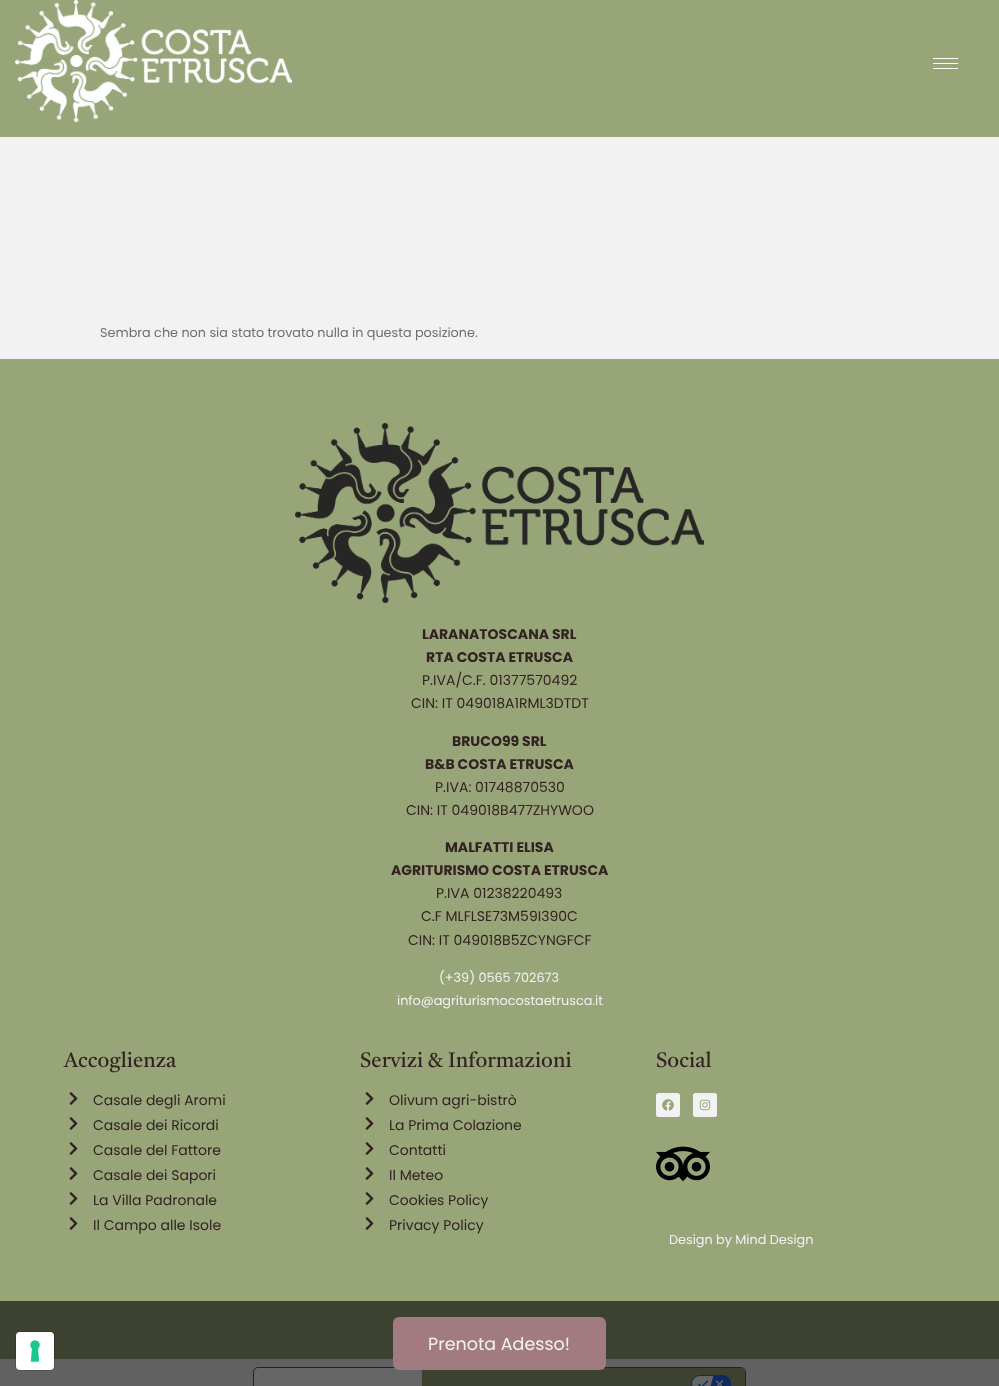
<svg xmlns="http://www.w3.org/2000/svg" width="999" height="1386">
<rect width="100%" height="100%" fill="#f2f2f2"/>
<rect y="1359" width="999" height="27" fill="#616161"/>
<rect width="999" height="137" fill="#98a579"/>
<image x="15" y="0" width="277" height="122" href="media/1.png"/>
<rect x="933" y="58" width="25" height="1" fill="#fff"/>
<rect x="933" y="63" width="25" height="1" fill="#fff"/>
<rect x="933" y="68" width="25" height="1" fill="#fff"/>
<text x="100" y="337" style="font-family:Poppins;font-size:12.8px;fill:#6e6e6e">Sembra che non sia stato trovato nulla in questa posizione.</text>
<rect y="1301" width="999" height="58" fill="#3d4230"/>
<rect x="15.5" y="1331.5" width="39" height="39" rx="4.5" fill="none" stroke="#00000026"/>
<rect x="16" y="1332" width="38" height="38" rx="4" fill="#fff"/>
<image x="30" y="1340" width="10" height="22" href="media/2.png"/>
<rect y="359" width="999" height="942" fill="#98a579"/>
<image x="295" y="423" width="409" height="180" href="media/3.png"/>
<text x="422" y="639" style="font-family:Poppins;font-size:14px;font-weight:bold;fill:#322">LARANATOSCANA SRL</text>
<text x="426" y="662" style="font-family:Poppins;font-size:14px;font-weight:bold;fill:#322">RTA COSTA ETRUSCA</text>
<text x="422" y="685" style="font-family:Poppins;font-size:14px;fill:#322">P.IVA/C.F. 01377570492</text>
<text x="411" y="708" style="font-family:Poppins;font-size:14px;fill:#322">CIN: IT 049018A1RML3DTDT</text>
<text x="452" y="746" style="font-family:Poppins;font-size:14px;font-weight:bold;fill:#322">BRUCO99 SRL</text>
<text x="425" y="769" style="font-family:Poppins;font-size:14px;font-weight:bold;fill:#322">B&amp;B COSTA ETRUSCA</text>
<text x="435" y="792" style="font-family:Poppins;font-size:14px;fill:#322">P.IVA: 01748870530</text>
<text x="406" y="815" style="font-family:Poppins;font-size:14px;fill:#322">CIN: IT 049018B477ZHYWOO</text>
<text x="445" y="852" style="font-family:Poppins;font-size:14px;font-weight:bold;fill:#322">MALFATTI ELISA</text>
<text x="391" y="875" style="font-family:Poppins;font-size:14px;font-weight:bold;fill:#322">AGRITURISMO COSTA ETRUSCA</text>
<text x="436" y="898" style="font-family:Poppins;font-size:14px;fill:#322">P.IVA 01238220493</text>
<text x="421" y="921" style="font-family:Poppins;font-size:14px;fill:#322">C.F MLFLSE73M59I390C</text>
<text x="408" y="945" style="font-family:Poppins;font-size:14px;fill:#322">CIN: IT 049018B5ZCYNGFCF</text>
<text x="439" y="982" style="font-family:Poppins;font-size:12.8px;fill:#f2f2f2">(+39) 0565 702673</text>
<text x="397" y="1005" style="font-family:Poppins;font-size:12.8px;fill:#f2f2f2">info@agriturismocostaetrusca.it</text>
<text x="64" y="1067" style="font-family:Tiro Devanagari Hindi;font-size:20.75px;fill:#322">Accoglienza</text>
<image x="69" y="1092" width="9" height="13" href="media/4.png"/>
<text x="93" y="1105" style="font-family:Poppins;font-size:14px;fill:#322">Casale degli Aromi</text>
<image x="69" y="1117" width="9" height="13" href="media/4.png"/>
<text x="93" y="1130" style="font-family:Poppins;font-size:14px;fill:#322">Casale dei Ricordi</text>
<image x="69" y="1142" width="9" height="13" href="media/4.png"/>
<text x="93" y="1155" style="font-family:Poppins;font-size:14px;fill:#322">Casale del Fattore</text>
<image x="69" y="1167" width="9" height="13" href="media/4.png"/>
<text x="93" y="1180" style="font-family:Poppins;font-size:14px;fill:#322">Casale dei Sapori</text>
<image x="69" y="1192" width="9" height="13" href="media/4.png"/>
<text x="93" y="1205" style="font-family:Poppins;font-size:14px;fill:#322">La Villa Padronale</text>
<image x="69" y="1217" width="9" height="13" href="media/4.png"/>
<text x="93" y="1230" style="font-family:Poppins;font-size:14px;fill:#322">Il Campo alle Isole</text>
<text x="360" y="1067" style="font-family:Tiro Devanagari Hindi;font-size:20.75px;fill:#322">Servizi &amp; Informazioni</text>
<image x="365" y="1092" width="9" height="13" href="media/4.png"/>
<text x="389" y="1105" style="font-family:Poppins;font-size:14px;fill:#322">Olivum agri-bistrò</text>
<image x="365" y="1117" width="9" height="13" href="media/4.png"/>
<text x="389" y="1130" style="font-family:Poppins;font-size:14px;fill:#322">La Prima Colazione</text>
<image x="365" y="1142" width="9" height="13" href="media/4.png"/>
<text x="389" y="1155" style="font-family:Poppins;font-size:14px;fill:#322">Contatti</text>
<image x="365" y="1167" width="9" height="13" href="media/4.png"/>
<text x="389" y="1180" style="font-family:Poppins;font-size:14px;fill:#322">Il Meteo</text>
<image x="365" y="1192" width="9" height="13" href="media/4.png"/>
<text x="389" y="1205" style="font-family:Poppins;font-size:14px;fill:#322">Cookies Policy</text>
<image x="365" y="1217" width="9" height="13" href="media/4.png"/>
<text x="389" y="1230" style="font-family:Poppins;font-size:14px;fill:#322">Privacy Policy</text>
<text x="656" y="1067" style="font-family:Tiro Devanagari Hindi;font-size:20.75px;fill:#322">Social</text>
<rect x="656" y="1093" width="24" height="24" rx="2.5" fill="#f2f2f2"/>
<image x="662" y="1099" width="12" height="12" href="media/5.png"/>
<rect x="693" y="1093" width="24" height="24" rx="2.5" fill="#f2f2f2"/>
<image x="699" y="1099" width="12" height="12" href="media/6.png"/>
<image x="656" y="1146" width="54" height="36" href="media/7.png"/>
<text x="669" y="1244" style="font-family:Poppins;font-size:12.8px;fill:#f2f2f2">Design by Mind Design</text>
<rect x="253.5" y="1367.5" width="492" height="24" rx="4.5" fill="#666" stroke="#242424"/>
<path d="M424 1368h317c2 0 4 2 4 4v14c0 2-2 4-4 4h-317c-1.5 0-3-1.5-3-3v-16c0-1.5 1.5-3 3-3z" fill="#3d4230"/>
<rect x="393" y="1317" width="213" height="53" rx="6" fill="#a27b80"/>
<text x="428" y="1350" style="font-family:Poppins;font-size:17.5px;fill:#f2f2f2">Prenota Adesso!</text>
<rect x="421" y="1370" width="1" height="16" fill="#616161"/>
<image x="691" y="1375" width="40" height="11" href="media/8.png"/>
</svg>
